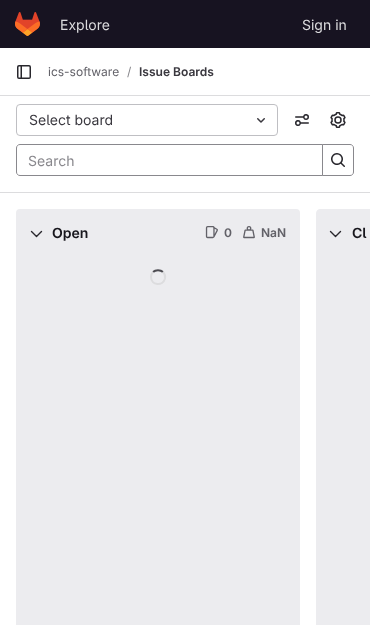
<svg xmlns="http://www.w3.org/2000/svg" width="370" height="625">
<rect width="100%" height="100%" fill="#fff"/>
<rect width="370" height="48" fill="#171321"/>
<image x="15" y="12" width="25" height="24" href="media/1.png"/>
<text x="60" y="30" style="font-family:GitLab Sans;font-size:14px;fill:#dcdcde">Explore</text>
<text x="302" y="30" style="font-family:GitLab Sans;font-size:14px;fill:#dcdcde">Sign in</text>
<rect y="95" width="370" height="1" fill="#dcdcde"/>
<image x="17" y="65" width="14" height="14" href="media/2.png"/>
<text x="48" y="76" style="font-family:GitLab Sans;font-size:12px;fill:#626168">ics-software</text>
<text x="127" y="76" style="font-family:GitLab Sans;font-size:12px;fill:#89888d">/</text>
<text x="139" y="76" style="font-family:GitLab Sans;font-size:12px;font-weight:600;fill:#3a383f">Issue Boards</text>
<rect y="192" width="370" height="1" fill="#dcdcde"/>
<rect x="16.5" y="104.5" width="261" height="31" rx="3.5" fill="none" stroke="#bfbfc3"/>
<text x="29" y="125" style="font-family:GitLab Sans;font-size:14px;fill:#3a383f">Select board</text>
<image x="257" y="118" width="8" height="5" href="media/3.png"/>
<image x="295" y="114" width="14" height="12" href="media/4.png"/>
<image x="330" y="112" width="16" height="16" href="media/5.png"/>
<path d="M20 144.5h302.5v31h-302.5c-2 0-3.5-1.5-3.5-3.5v-24c0-2 1.5-3.5 3.5-3.5z" fill="none" stroke="#89888d"/>
<text x="28" y="166" style="font-family:GitLab Sans;font-size:14px;fill:#89888d">Search</text>
<path d="M322.5 144.5h27.5c2 0 3.5 1.5 3.5 3.5v24c0 2-1.5 3.5-3.5 3.5h-27.5z" fill="#fff" stroke="#89888d"/>
<image x="331" y="153" width="14" height="14" href="media/6.png"/>
<rect x="16" y="209" width="284" height="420" rx="4" fill="#ececef"/>
<path d="M31.5 231.5l5 5l5-5" fill="none" stroke="#28272d" stroke-width="1.4" stroke-linecap="round" stroke-linejoin="round"/>
<text x="52" y="238" style="font-family:GitLab Sans;font-size:14px;font-weight:600;fill:#18171d">Open</text>
<image x="205" y="226" width="13" height="13" href="media/7.png"/>
<text x="224" y="237" style="font-family:GitLab Sans;font-size:12px;font-weight:600;fill:#626168">0</text>
<image x="243" y="226" width="12" height="13" href="media/8.png"/>
<text x="261" y="237" style="font-family:GitLab Sans;font-size:12px;font-weight:600;fill:#626168">NaN</text>
<path d="M153 272c2.5-2.5 7.5-2.5 10 0" fill="none" stroke="#4c4b51" stroke-width="2"/>
<path d="M163 272c1.5 1.5 2.5 4 2 6.5c-2 8-14 7-14-1.5c0-2 .5-3.5 2-5" fill="none" stroke="#dcdcde" stroke-width="2"/>
<path d="M320 209h50v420h-50c-2 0-4-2-4-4v-412c0-2 2-4 4-4z" fill="#ececef"/>
<path d="M330.5 231.5l5 5l5-5" fill="none" stroke="#28272d" stroke-width="1.4" stroke-linecap="round" stroke-linejoin="round"/>
<text x="352" y="238" style="font-family:GitLab Sans;font-size:14px;font-weight:600;fill:#18171d">Cl</text>
</svg>
